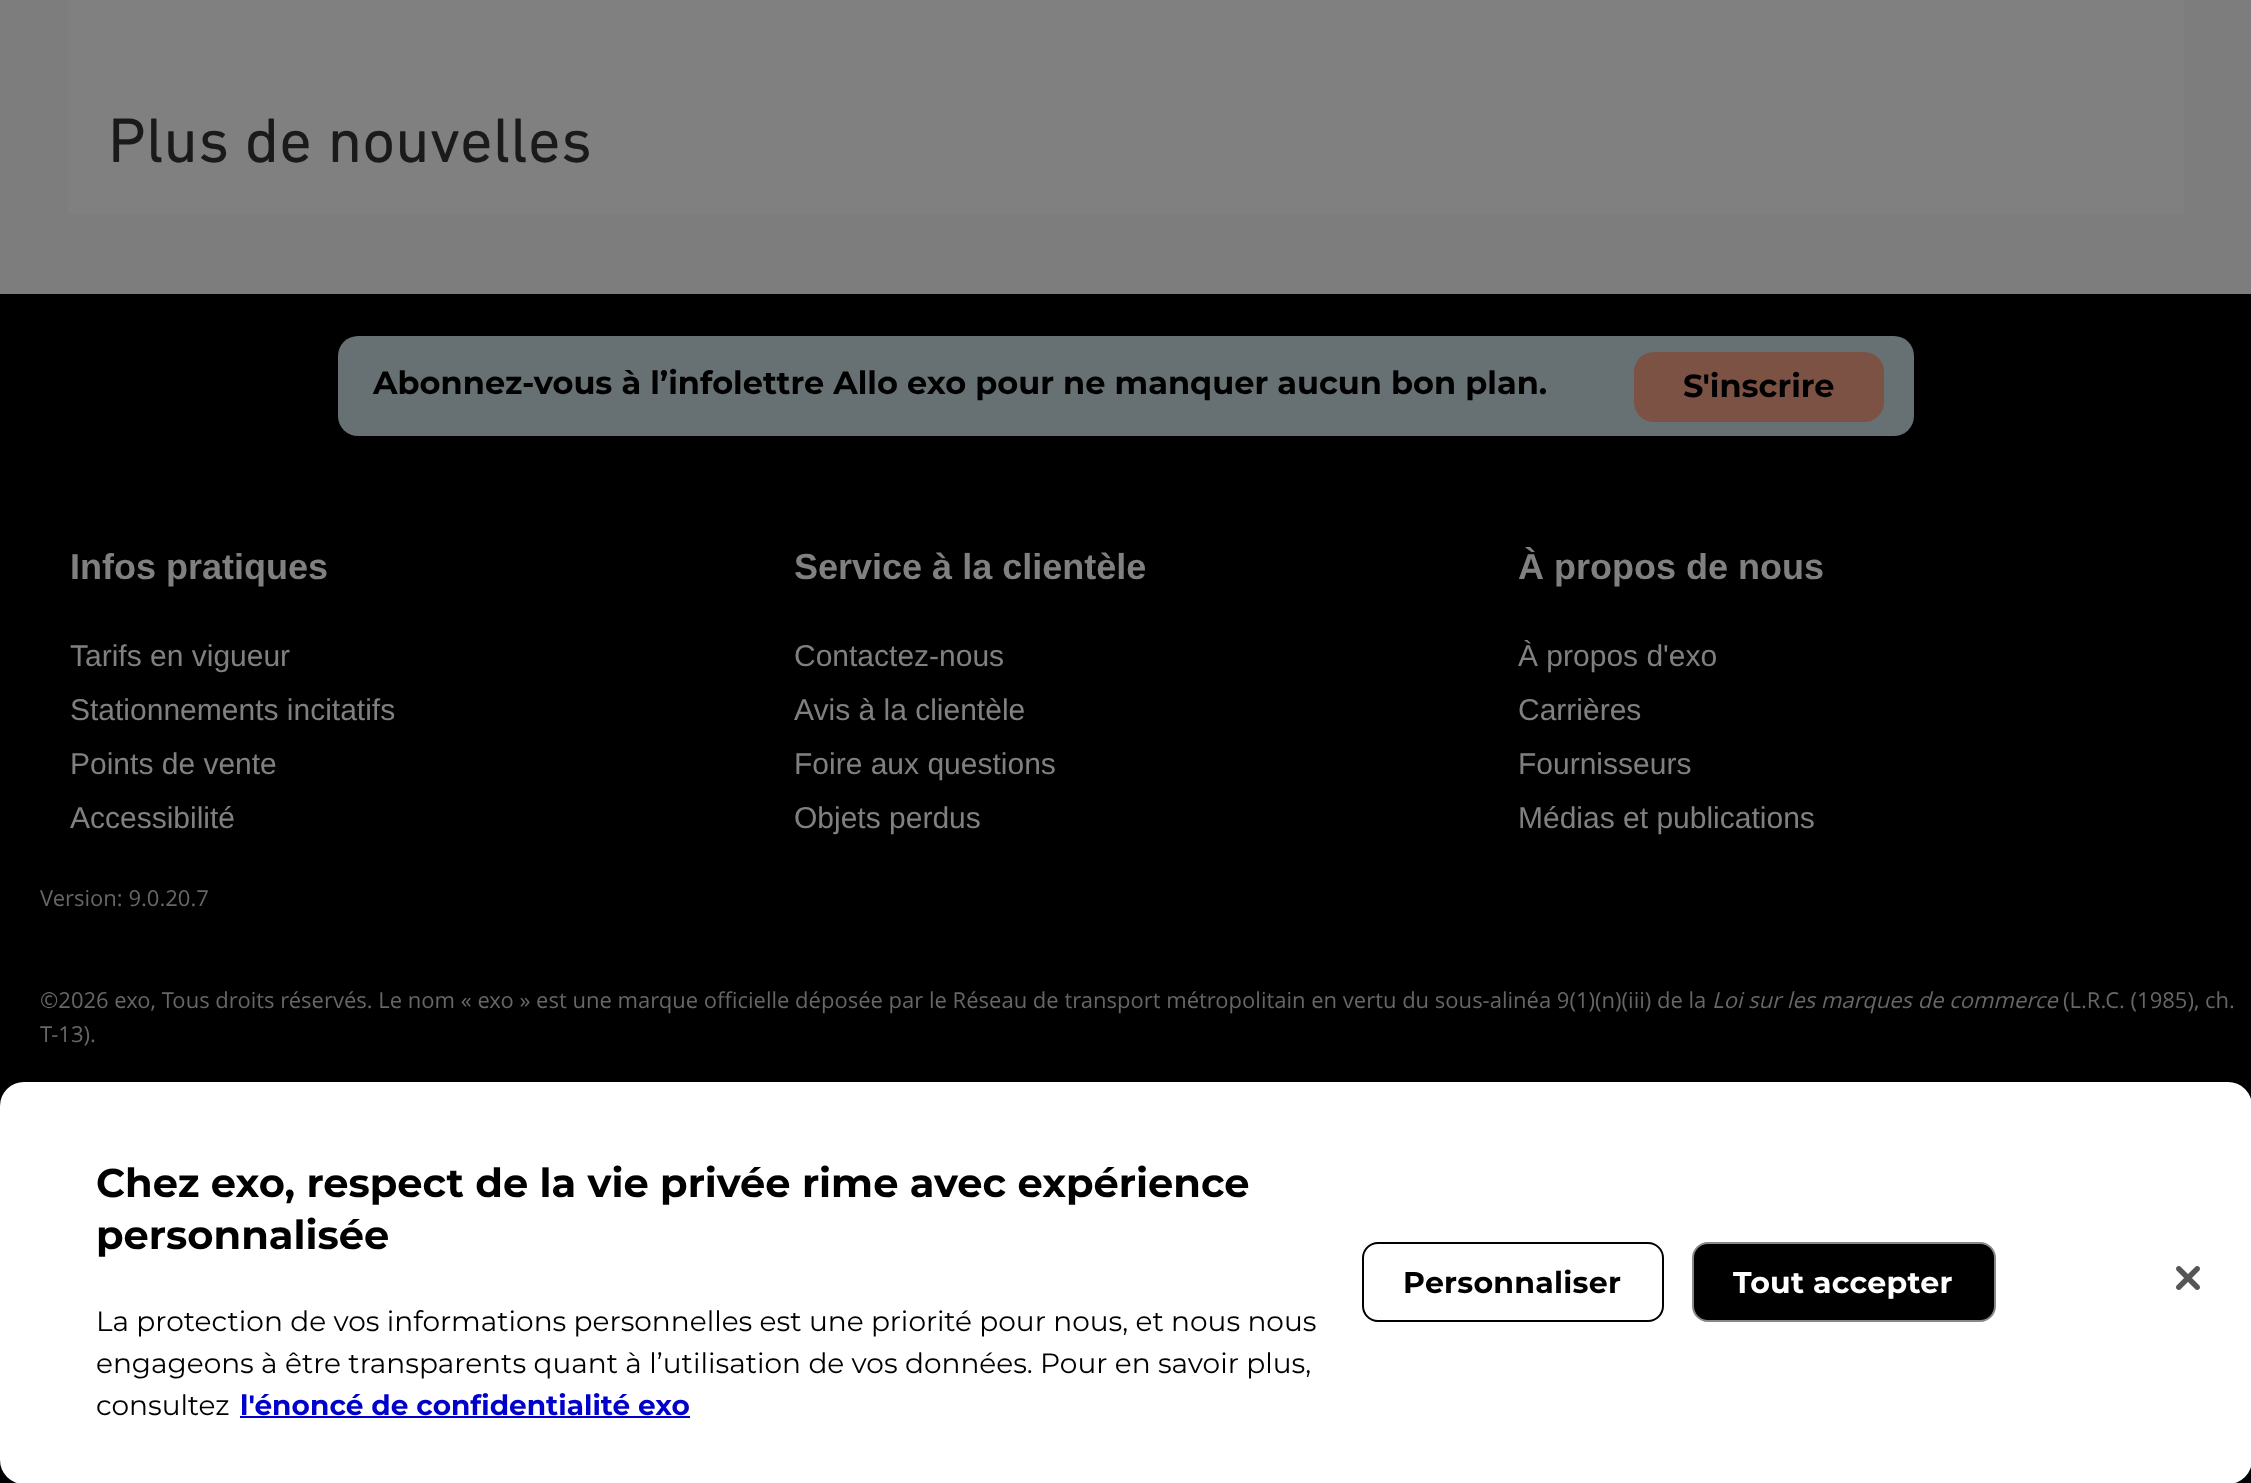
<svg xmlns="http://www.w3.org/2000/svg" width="2251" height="1483">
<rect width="100%" height="100%" fill="#7d7d7d"/>
<rect x="68" width="2116" height="214" fill="#808080"/>
<text x="108" y="162" style="font-family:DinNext;font-size:64px;fill:#1a1a1a">Plus de nouvelles</text>
<rect y="294" width="2251" height="1189" fill="#000"/>
<rect x="338" y="336" width="1576" height="100" rx="20" fill="#677072"/>
<text x="373" y="394" style="font-family:Montserrat;font-size:32px;font-weight:bold;fill:#000">Abonnez-vous à l’infolettre Allo exo pour ne manquer aucun bon plan.</text>
<rect x="1634" y="352" width="250" height="70" rx="20" fill="#7c5245"/>
<text x="1683" y="397" style="font-family:Montserrat;font-size:32px;font-weight:bold;fill:#000">S'inscrire</text>
<text x="70" y="579" style="font-family:Liberation Sans;font-size:36px;font-weight:bold;fill:#808080">Infos pratiques</text>
<text x="70" y="666" style="font-family:Liberation Sans;font-size:30px;fill:#808080">Tarifs en vigueur</text>
<text x="70" y="720" style="font-family:Liberation Sans;font-size:30px;fill:#808080">Stationnements incitatifs</text>
<text x="70" y="774" style="font-family:Liberation Sans;font-size:30px;fill:#808080">Points de vente</text>
<text x="70" y="828" style="font-family:Liberation Sans;font-size:30px;fill:#808080">Accessibilité</text>
<text x="794" y="579" style="font-family:Liberation Sans;font-size:36px;font-weight:bold;fill:#808080">Service à la clientèle</text>
<text x="794" y="666" style="font-family:Liberation Sans;font-size:30px;fill:#808080">Contactez-nous</text>
<text x="794" y="720" style="font-family:Liberation Sans;font-size:30px;fill:#808080">Avis à la clientèle</text>
<text x="794" y="774" style="font-family:Liberation Sans;font-size:30px;fill:#808080">Foire aux questions</text>
<text x="794" y="828" style="font-family:Liberation Sans;font-size:30px;fill:#808080">Objets perdus</text>
<text x="1518" y="579" style="font-family:Liberation Sans;font-size:36px;font-weight:bold;fill:#808080">À propos de nous</text>
<text x="1518" y="666" style="font-family:Liberation Sans;font-size:30px;fill:#808080">À propos d'exo</text>
<text x="1518" y="720" style="font-family:Liberation Sans;font-size:30px;fill:#808080">Carrières</text>
<text x="1518" y="774" style="font-family:Liberation Sans;font-size:30px;fill:#808080">Fournisseurs</text>
<text x="1518" y="828" style="font-family:Liberation Sans;font-size:30px;fill:#808080">Médias et publications</text>
<text x="40" y="906" style="font-family:Open Sans;font-size:22px;fill:#666">Version: 9.0.20.7</text>
<text x="40" y="1008" style="font-family:Open Sans;font-size:22px;fill:#666">©2026 exo, Tous droits réservés. Le nom « exo » est une marque officielle déposée par le Réseau de transport métropolitain en vertu du sous-alinéa 9(1)(n)(iii) de la</text>
<text x="1712" y="1008" style="font-family:Open Sans;font-size:22px;font-style:italic;fill:#666">Loi sur les marques de commerce</text>
<text x="2063" y="1008" style="font-family:Open Sans;font-size:22px;fill:#666">(L.R.C. (1985), ch.</text>
<text x="40" y="1042" style="font-family:Open Sans;font-size:22px;fill:#666">T-13).</text>
<rect y="1082" width="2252" height="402" rx="24" fill="#fff"/>
<text x="96" y="1197" style="font-family:Montserrat;font-size:40px;font-weight:bold;fill:#000">Chez exo, respect de la vie privée rime avec expérience</text>
<text x="96" y="1249" style="font-family:Montserrat;font-size:40px;font-weight:bold;fill:#000">personnalisée</text>
<text x="96" y="1331" style="font-family:Montserrat;font-size:28px;fill:#000">La protection de vos informations personnelles est une priorité pour nous, et nous nous</text>
<text x="96" y="1373" style="font-family:Montserrat;font-size:28px;fill:#000">engageons à être transparents quant à l’utilisation de vos données. Pour en savoir plus,</text>
<text x="96" y="1415" style="font-family:Montserrat;font-size:28px;fill:#000">consultez</text>
<text x="240" y="1415" style="font-family:Montserrat;font-size:28px;font-weight:bold;fill:#00c">l'énoncé de confidentialité exo</text>
<rect x="240" y="1416" width="450" height="2" fill="#00c"/>
<rect x="1363" y="1243" width="300" height="78" rx="15" fill="none" stroke="#000" stroke-width="2"/>
<text x="1403" y="1293" style="font-family:Montserrat;font-size:30px;font-weight:bold;letter-spacing:0.25px;fill:#000">Personnaliser</text>
<rect x="1693" y="1243" width="302" height="78" rx="15" fill="#000" stroke="#888" stroke-width="2"/>
<text x="1733" y="1293" style="font-family:Montserrat;font-size:30px;font-weight:bold;letter-spacing:0.25px;fill:#fff">Tout accepter</text>
<image x="2176" y="1266" width="24" height="24" href="media/1.png"/>
</svg>
